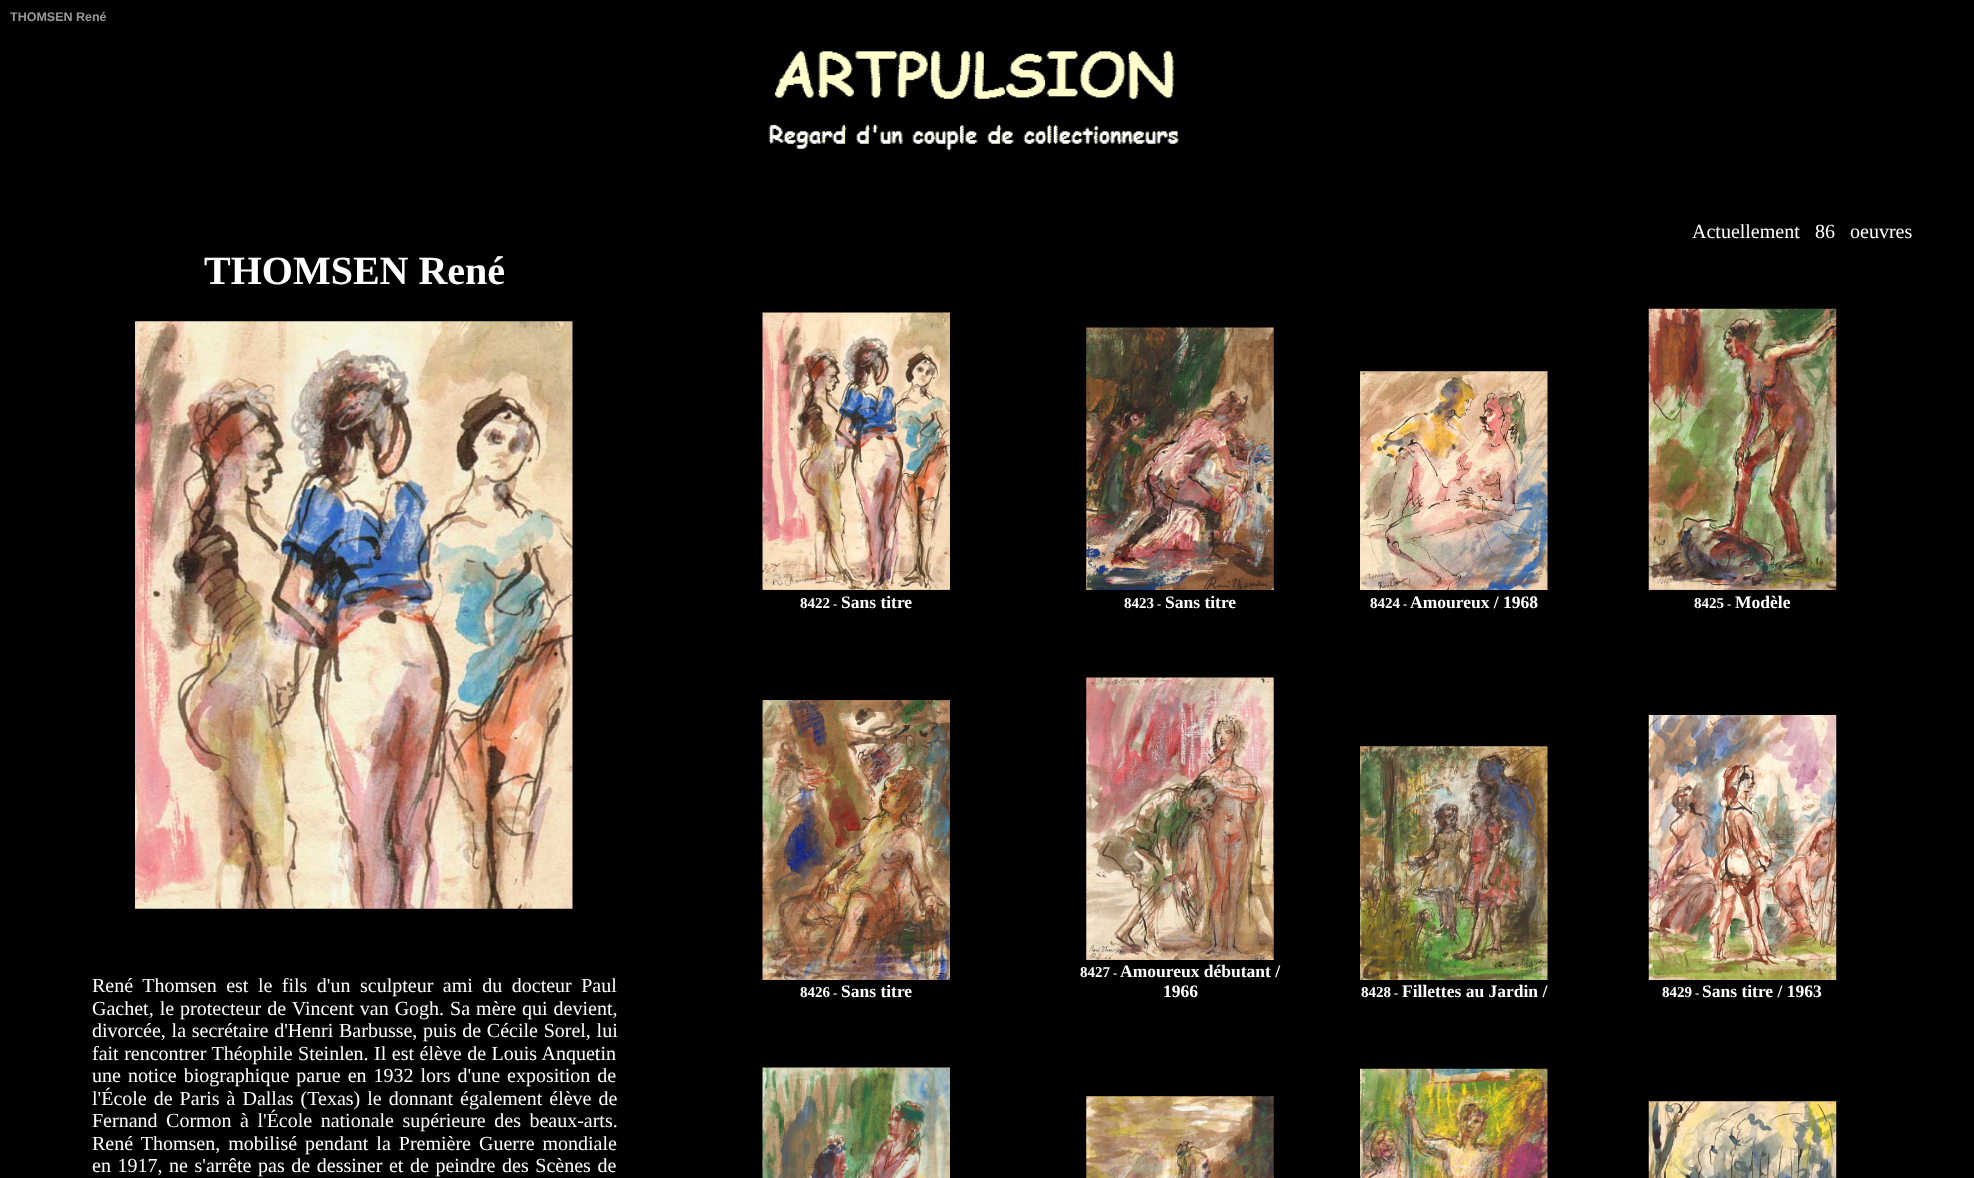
<svg xmlns="http://www.w3.org/2000/svg" width="1974" height="1178">
<rect width="100%" height="100%" fill="#000"/>
<text x="10" y="21" style="font-family:Liberation Sans;font-size:12.5px;font-weight:bold;fill:#999">THOMSEN René</text>
<image x="768" y="51" width="411" height="100" href="media/1.png"/>
<text x="1692" y="238" style="font-family:Liberation Serif;font-size:20px;fill:#fff">Actuellement</text>
<text x="1815" y="238" style="font-family:Liberation Serif;font-size:20px;fill:#fff">86</text>
<text x="1850" y="238" style="font-family:Liberation Serif;font-size:20px;fill:#fff">oeuvres</text>
<text x="204" y="284" style="font-family:Liberation Serif;font-size:40px;font-weight:bold;fill:#fff">THOMSEN René</text>
<image x="135" y="321" width="438" height="588" href="media/2.png"/>
<text x="92" y="992" word-spacing="4.5" style="font-family:Liberation Serif;font-size:20px;fill:#fff">René Thomsen est le fils d'un sculpteur ami du docteur Paul</text>
<text x="92" y="1015" word-spacing="1" style="font-family:Liberation Serif;font-size:20px;fill:#fff">Gachet, le protecteur de Vincent van Gogh. Sa mère qui devient,</text>
<text x="92" y="1037" word-spacing="0.75" style="font-family:Liberation Serif;font-size:20px;fill:#fff">divorcée, la secrétaire d'Henri Barbusse, puis de Cécile Sorel, lui</text>
<text x="92" y="1060" word-spacing="0.5" style="font-family:Liberation Serif;font-size:20px;fill:#fff">fait rencontrer Théophile Steinlen. Il est élève de Louis Anquetin</text>
<text x="92" y="1082" word-spacing="2" style="font-family:Liberation Serif;font-size:20px;fill:#fff">une notice biographique parue en 1932 lors d'une exposition de</text>
<text x="92" y="1105" word-spacing="2" style="font-family:Liberation Serif;font-size:20px;fill:#fff">l'École de Paris à Dallas (Texas) le donnant également élève de</text>
<text x="92" y="1127" word-spacing="3.5" style="font-family:Liberation Serif;font-size:20px;fill:#fff">Fernand Cormon à l'École nationale supérieure des beaux-arts.</text>
<text x="92" y="1150" word-spacing="3" style="font-family:Liberation Serif;font-size:20px;fill:#fff">René Thomsen, mobilisé pendant la Première Guerre mondiale</text>
<text x="92" y="1172" word-spacing="1.6" style="font-family:Liberation Serif;font-size:20px;fill:#fff">en 1917, ne s'arrête pas de dessiner et de peindre des Scènes de</text>
<image x="762" y="312" width="188" height="278" href="media/3.png"/>
<text x="800" y="608" style="font-family:Liberation Serif;font-size:15px;font-weight:bold;fill:#fff">8422</text>
<text x="833" y="608" style="font-family:Liberation Serif;font-size:12.5px;font-weight:bold;fill:#fff">-</text>
<text x="841" y="608" style="font-family:Liberation Serif;font-size:17.5px;font-weight:bold;fill:#fff">Sans titre</text>
<image x="1086" y="327" width="188" height="263" href="media/4.png"/>
<text x="1124" y="608" style="font-family:Liberation Serif;font-size:15px;font-weight:bold;fill:#fff">8423</text>
<text x="1157" y="608" style="font-family:Liberation Serif;font-size:12.5px;font-weight:bold;fill:#fff">-</text>
<text x="1165" y="608" style="font-family:Liberation Serif;font-size:17.5px;font-weight:bold;fill:#fff">Sans titre</text>
<image x="1360" y="371" width="188" height="219" href="media/5.png"/>
<text x="1370" y="608" style="font-family:Liberation Serif;font-size:15px;font-weight:bold;fill:#fff">8424</text>
<text x="1403" y="608" style="font-family:Liberation Serif;font-size:12.5px;font-weight:bold;fill:#fff">-</text>
<text x="1410" y="608" style="font-family:Liberation Serif;font-size:17.5px;font-weight:bold;fill:#fff">Amoureux / 1968</text>
<image x="1648" y="308" width="189" height="282" href="media/6.png"/>
<text x="1694" y="608" style="font-family:Liberation Serif;font-size:15px;font-weight:bold;fill:#fff">8425</text>
<text x="1727" y="608" style="font-family:Liberation Serif;font-size:12.5px;font-weight:bold;fill:#fff">-</text>
<text x="1735" y="608" style="font-family:Liberation Serif;font-size:17.5px;font-weight:bold;fill:#fff">Modèle</text>
<image x="762" y="700" width="188" height="280" href="media/7.png"/>
<text x="800" y="997" style="font-family:Liberation Serif;font-size:15px;font-weight:bold;fill:#fff">8426</text>
<text x="833" y="997" style="font-family:Liberation Serif;font-size:12.5px;font-weight:bold;fill:#fff">-</text>
<text x="841" y="997" style="font-family:Liberation Serif;font-size:17.5px;font-weight:bold;fill:#fff">Sans titre</text>
<image x="1086" y="677" width="188" height="283" href="media/8.png"/>
<text x="1080" y="977" style="font-family:Liberation Serif;font-size:15px;font-weight:bold;fill:#fff">8427</text>
<text x="1113" y="977" style="font-family:Liberation Serif;font-size:12.5px;font-weight:bold;fill:#fff">-</text>
<text x="1120" y="977" style="font-family:Liberation Serif;font-size:17.5px;font-weight:bold;fill:#fff">Amoureux débutant /</text>
<text x="1163" y="997" style="font-family:Liberation Serif;font-size:17.5px;font-weight:bold;fill:#fff">1966</text>
<image x="1360" y="746" width="188" height="234" href="media/9.png"/>
<text x="1361" y="997" style="font-family:Liberation Serif;font-size:15px;font-weight:bold;fill:#fff">8428</text>
<text x="1394" y="997" style="font-family:Liberation Serif;font-size:12.5px;font-weight:bold;fill:#fff">-</text>
<text x="1402" y="997" style="font-family:Liberation Serif;font-size:17.5px;font-weight:bold;fill:#fff">Fillettes au Jardin /</text>
<image x="1648" y="715" width="189" height="265" href="media/10.png"/>
<text x="1662" y="997" style="font-family:Liberation Serif;font-size:15px;font-weight:bold;fill:#fff">8429</text>
<text x="1695" y="997" style="font-family:Liberation Serif;font-size:12.5px;font-weight:bold;fill:#fff">-</text>
<text x="1702" y="997" style="font-family:Liberation Serif;font-size:17.5px;font-weight:bold;fill:#fff">Sans titre / 1963</text>
<image x="762" y="1067" width="188" height="111" href="media/11.png"/>
<image x="1086" y="1096" width="188" height="82" href="media/12.png"/>
<image x="1360" y="1068" width="188" height="110" href="media/13.png"/>
<image x="1648" y="1101" width="189" height="77" href="media/14.png"/>
</svg>
